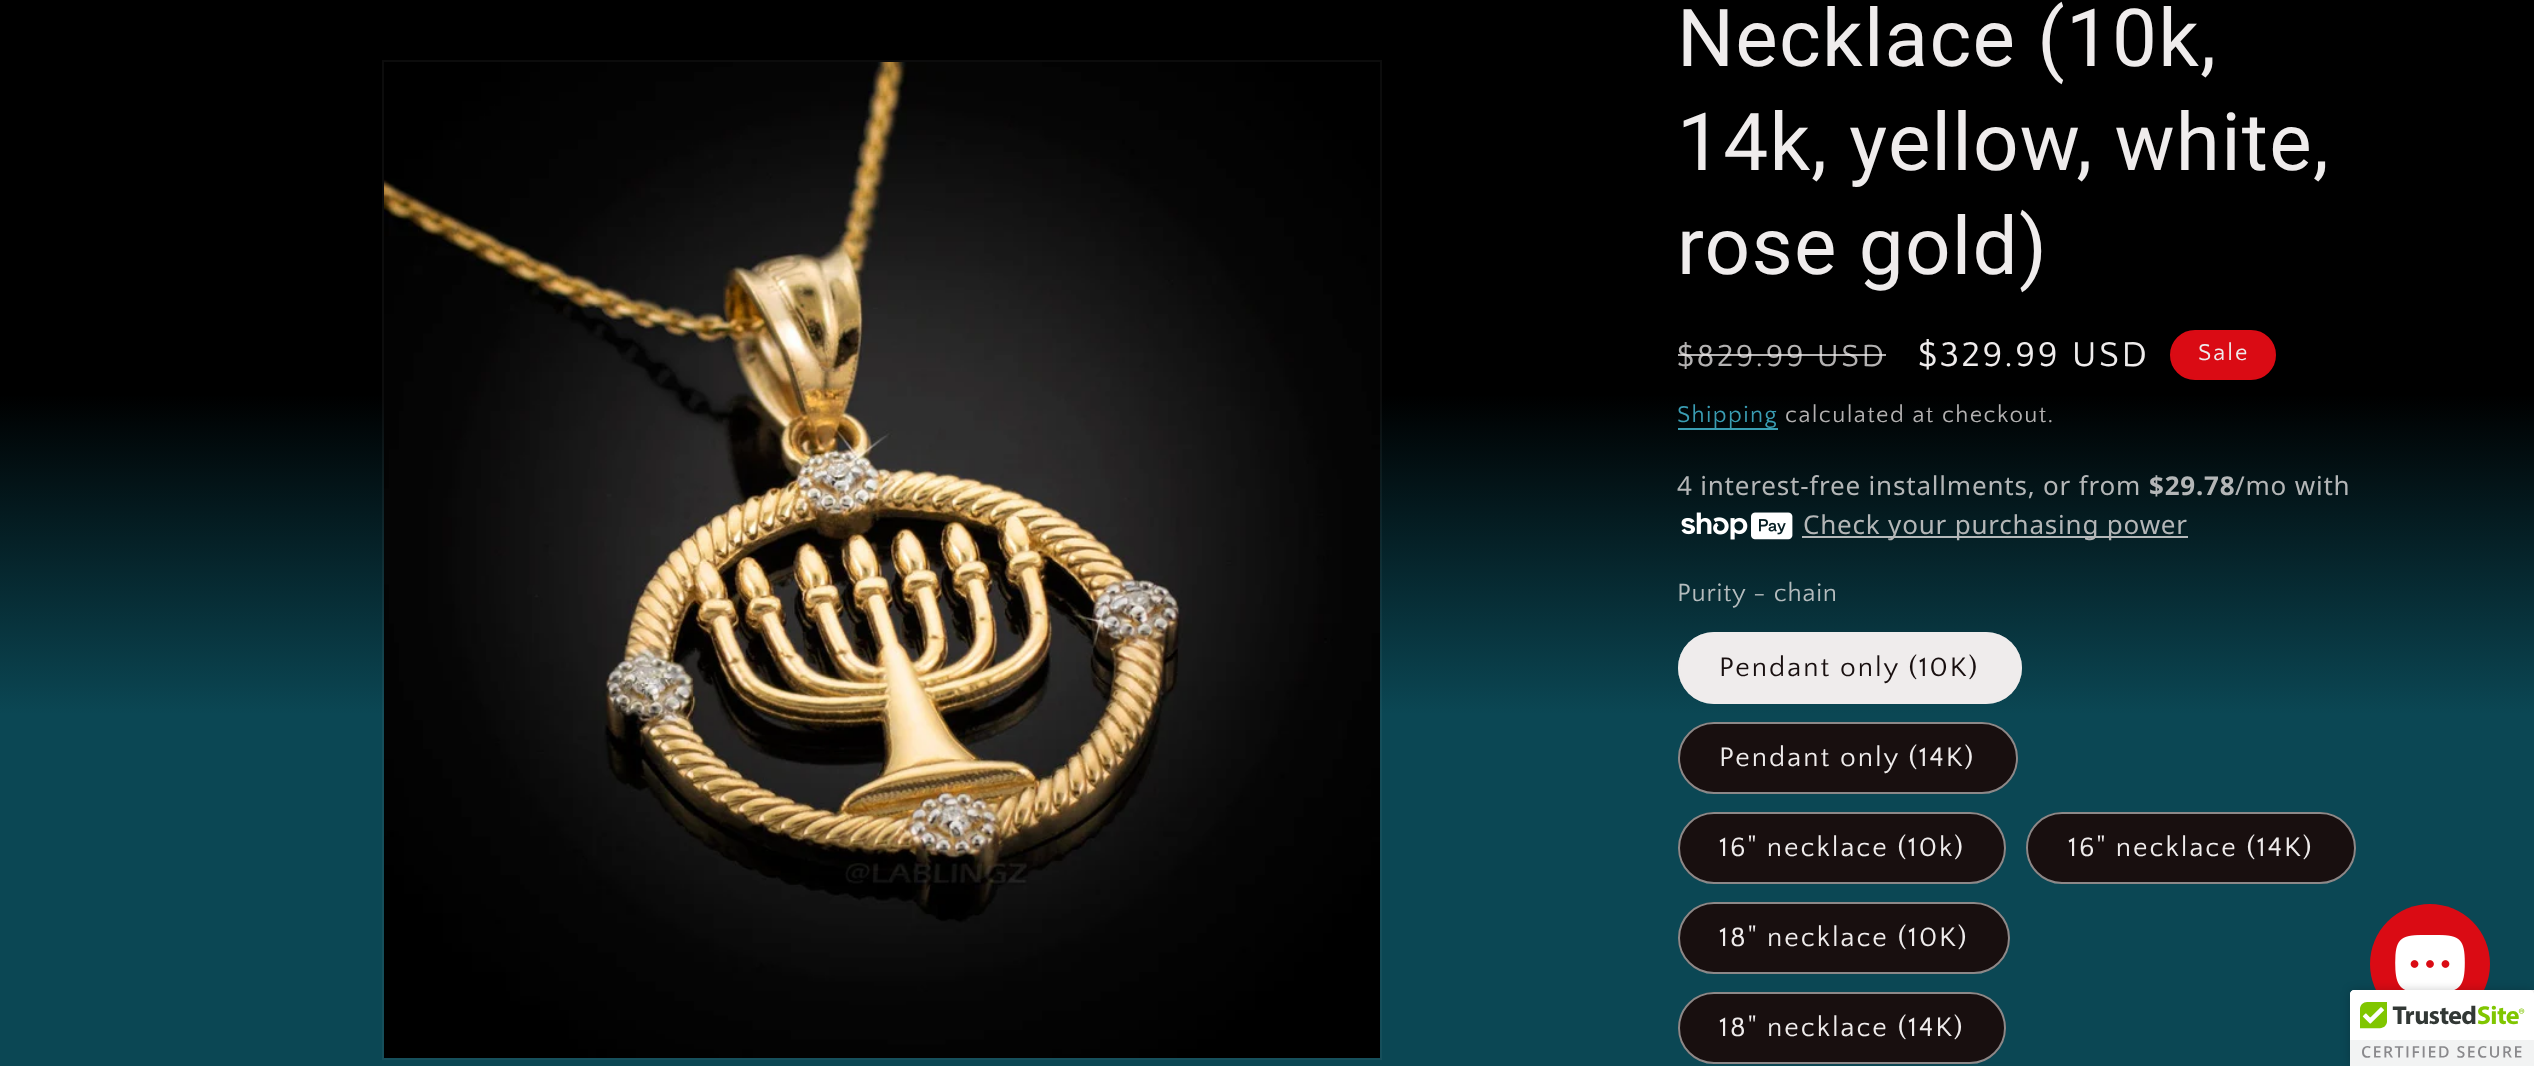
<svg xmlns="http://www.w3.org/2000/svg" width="2534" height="1066">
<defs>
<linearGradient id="g1" gradientUnits="userSpaceOnUse" x1="1267" y1="1066" x2="1267" y2="0"><stop offset="0.33" stop-color="#0b4754"/><stop offset="0.63" stop-color="#000"/></linearGradient>
</defs>
<rect width="100%" height="100%" fill="#fff"/>
<rect width="2534" height="1066" fill="url(#g1)"/>
<rect x="383" y="61" width="998" height="998" fill="none" stroke="#efecec0d" stroke-width="2"/>
<image x="384" y="62" width="996" height="996" href="media/1.png"/>
<text x="1677" y="66" style="font-family:Roboto;font-size:80px;letter-spacing:1.25px;fill:#efecec">Necklace (10k,</text>
<text x="1677" y="170" style="font-family:Roboto;font-size:80px;letter-spacing:1.25px;fill:#efecec">14k, yellow, white,</text>
<text x="1677" y="274" style="font-family:Roboto;font-size:80px;letter-spacing:1.25px;fill:#efecec">rose gold)</text>
<text x="1677" y="366" style="font-family:Quattrocento Sans;font-size:32px;letter-spacing:2.6px;fill:#b3b1b1">$829.99 USD</text>
<rect x="1678" y="354" width="208" height="2" fill="#efececbf"/>
<text x="1918" y="366" style="font-family:Quattrocento Sans;font-size:36px;letter-spacing:2.6px;fill:#efecec">$329.99 USD</text>
<rect x="2171" y="331" width="104" height="48" rx="24" fill="#da0b14" stroke="#da0b14" stroke-width="2"/>
<text x="2198" y="360" style="font-family:Quattrocento Sans;font-size:24px;letter-spacing:2px;fill:#efecec">Sale</text>
<rect x="1678" y="428" width="100" height="2" fill="#3a9eb3"/>
<text x="1677" y="422" style="font-family:Quattrocento Sans;font-size:24px;letter-spacing:1.4px;fill:#3a9db3">Shipping</text>
<text x="1785" y="422" style="font-family:Quattrocento Sans;font-size:24px;letter-spacing:1.4px;fill:#b3b1b1">calculated at checkout.</text>
<text x="1677" y="495" style="font-family:Noto Sans;font-size:26px;letter-spacing:0.8px;fill:#b4b6b7">4 interest-free installments, or from</text>
<text x="2149" y="495" style="font-family:Noto Sans;font-size:26px;font-weight:bold;letter-spacing:0.8px;fill:#b4b6b7">$29.78</text>
<text x="2235" y="495" style="font-family:Noto Sans;font-size:26px;letter-spacing:0.8px;fill:#b4b6b7">/mo with</text>
<image x="1681" y="512" width="112" height="28" href="media/2.png"/>
<rect x="1802" y="536" width="386" height="2" fill="#b5b9ba"/>
<text x="1803" y="534" style="font-family:Noto Sans;font-size:26px;letter-spacing:0.8px;fill:#b4b6b7">Check your purchasing power</text>
<text x="1677" y="601" style="font-family:Quattrocento Sans;font-size:26px;letter-spacing:0.8px;fill:#b5bcbe">Purity - chain</text>
<rect x="1678" y="632" width="344" height="72" rx="36" fill="#efecec"/>
<rect x="1679" y="633" width="342" height="70" rx="35" fill="none" stroke="#efecec8c" stroke-width="2"/>
<text x="1719" y="676" style="font-family:Quattrocento Sans;font-size:28px;letter-spacing:2px;fill:#180f0f">Pendant only (10K)</text>
<rect x="1678" y="722" width="340" height="72" rx="36" fill="#180f0f"/>
<rect x="1679" y="723" width="338" height="70" rx="35" fill="none" stroke="#efecec8c" stroke-width="2"/>
<text x="1719" y="766" style="font-family:Quattrocento Sans;font-size:28px;letter-spacing:2px;fill:#efecec">Pendant only (14K)</text>
<rect x="1678" y="812" width="328" height="72" rx="36" fill="#180f0f"/>
<rect x="1679" y="813" width="326" height="70" rx="35" fill="none" stroke="#efecec8c" stroke-width="2"/>
<text x="1719" y="856" style="font-family:Quattrocento Sans;font-size:28px;letter-spacing:2px;fill:#efecec">16" necklace (10k)</text>
<rect x="2026" y="812" width="330" height="72" rx="36" fill="#180f0f"/>
<rect x="2027" y="813" width="328" height="70" rx="35" fill="none" stroke="#efecec8c" stroke-width="2"/>
<text x="2068" y="856" style="font-family:Quattrocento Sans;font-size:28px;letter-spacing:2px;fill:#efecec">16" necklace (14K)</text>
<rect x="1678" y="902" width="332" height="72" rx="36" fill="#180f0f"/>
<rect x="1679" y="903" width="330" height="70" rx="35" fill="none" stroke="#efecec8c" stroke-width="2"/>
<text x="1719" y="946" style="font-family:Quattrocento Sans;font-size:28px;letter-spacing:2px;fill:#efecec">18" necklace (10K)</text>
<rect x="1678" y="992" width="328" height="72" rx="36" fill="#180f0f"/>
<rect x="1679" y="993" width="326" height="70" rx="35" fill="none" stroke="#efecec8c" stroke-width="2"/>
<text x="1719" y="1036" style="font-family:Quattrocento Sans;font-size:28px;letter-spacing:2px;fill:#efecec">18" necklace (14K)</text>
<circle cx="2430" cy="964" r="60" fill="#da0b14"/>
<image x="2395" y="935" width="70" height="55" href="media/3.png"/>
<rect x="2350" y="990" width="184" height="76" rx="4" fill="#00000033" filter="blur(5px)"/>
<path d="M2354 990h180v76h-184v-72c0-2 2-4 4-4z" fill="#fff"/>
<image x="2350" y="990" width="184" height="76" href="media/4.png"/>
</svg>
